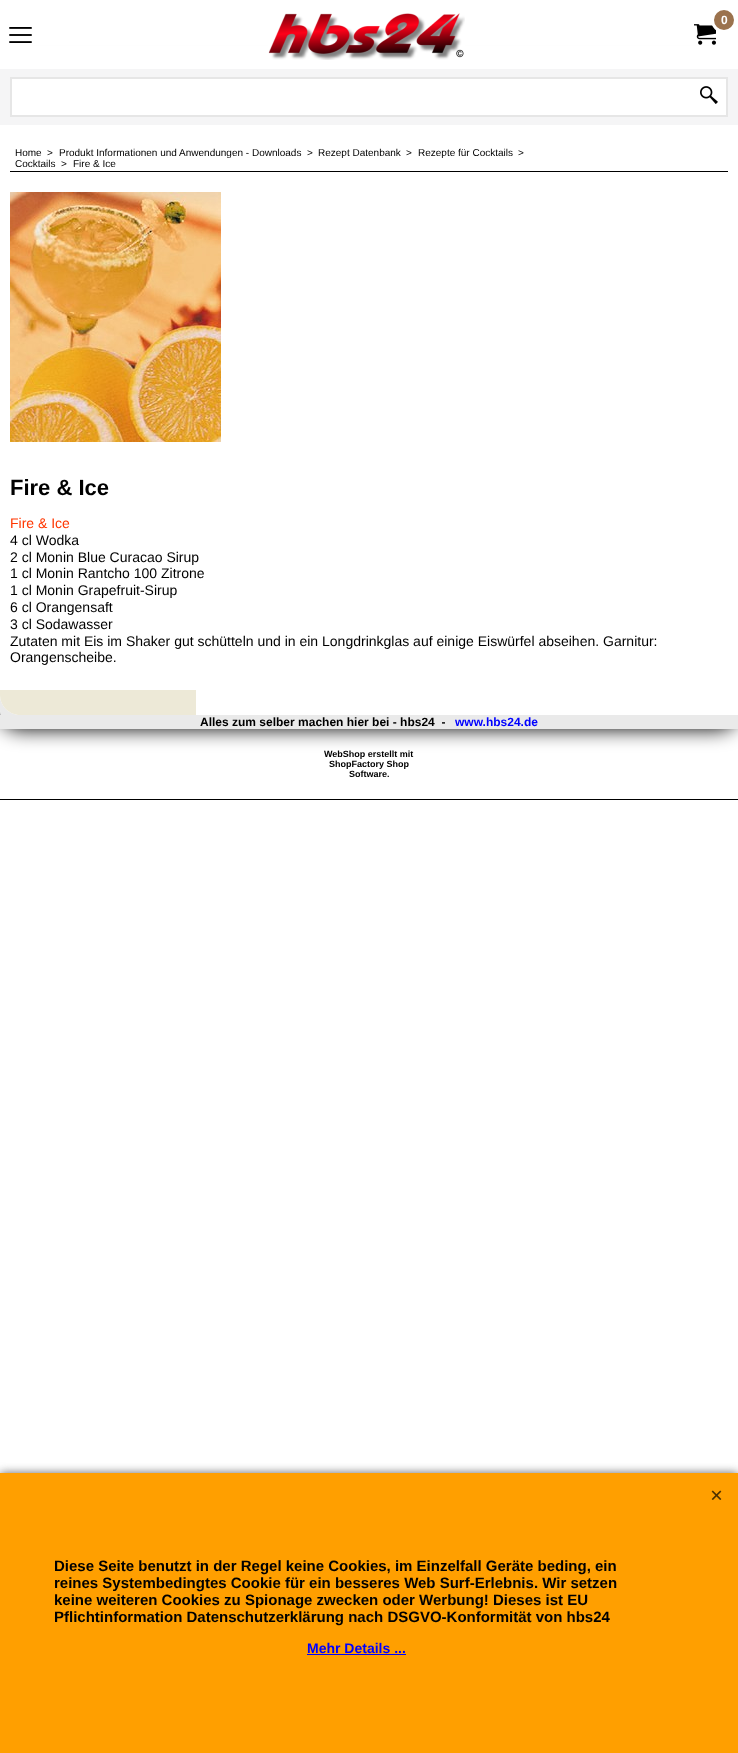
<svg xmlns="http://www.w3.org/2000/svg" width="738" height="1753">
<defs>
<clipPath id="clip1"><path d="M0 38h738v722h-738zm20 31h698c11 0 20 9 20 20v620c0 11-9 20-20 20h-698c-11 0-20-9-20-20v-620c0-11 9-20 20-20z" clip-rule="evenodd"/></clipPath>
</defs>
<rect width="100%" height="100%" fill="#fff"/>
<g clip-path="url(#clip1)">
<rect y="69" width="738" height="660" rx="20" fill="#000" filter="blur(10px)"/>
</g>
<rect y="46" width="738" height="23" fill="#fff"/>
<image x="268" y="13" width="197" height="47" href="media/1.png"/>
<image x="694" y="24" width="22" height="21" href="media/2.png"/>
<circle cx="724" cy="20" r="11.5" fill="#9b724d" stroke="#fff" stroke-width="3"/>
<text x="721" y="24" style="font-family:Liberation Sans;font-size:12px;font-weight:bold;fill:#fff">0</text>
<image x="9" y="27" width="23" height="16" href="media/3.png"/>
<rect y="69" width="738" height="56" fill="#f5f5f6"/>
<rect x="11" y="78" width="716" height="38" fill="#fff" stroke="#e6e6e6" stroke-width="2"/>
<image x="700" y="86" width="18" height="18" href="media/4.png"/>
<rect x="10" y="171" width="718" height="1" fill="#000"/>
<text x="15" y="156" style="font-family:Liberation Sans;font-size:10px;fill:#000">Home</text>
<text x="47" y="156" style="font-family:Liberation Sans;font-size:10px;fill:#000">&gt;</text>
<text x="59" y="156" style="font-family:Liberation Sans;font-size:10px;fill:#000">Produkt Informationen und Anwendungen - Downloads</text>
<text x="307" y="156" style="font-family:Liberation Sans;font-size:10px;fill:#000">&gt;</text>
<text x="318" y="156" style="font-family:Liberation Sans;font-size:10px;fill:#000">Rezept Datenbank</text>
<text x="406" y="156" style="font-family:Liberation Sans;font-size:10px;fill:#000">&gt;</text>
<text x="418" y="156" style="font-family:Liberation Sans;font-size:10px;fill:#000">Rezepte für Cocktails</text>
<text x="518" y="156" style="font-family:Liberation Sans;font-size:10px;fill:#000">&gt;</text>
<text x="15" y="167" style="font-family:Liberation Sans;font-size:10px;fill:#000">Cocktails</text>
<text x="61" y="167" style="font-family:Liberation Sans;font-size:10px;fill:#000">&gt;</text>
<text x="73" y="167" style="font-family:Liberation Sans;font-size:10px;fill:#000">Fire &amp; Ice</text>
<image x="10" y="192" width="211" height="250" href="media/5.png"/>
<text x="10" y="495" style="font-family:Liberation Sans;font-size:22px;font-weight:bold;fill:#000">Fire &amp; Ice</text>
<text x="10" y="528" style="font-family:Liberation Sans;font-size:14px;fill:#ff3600">Fire &amp; Ice</text>
<text x="10" y="545" style="font-family:Liberation Sans;font-size:14px;fill:#000">4 cl Wodka</text>
<text x="10" y="562" style="font-family:Liberation Sans;font-size:14px;fill:#000">2 cl Monin Blue Curacao Sirup</text>
<text x="10" y="578" style="font-family:Liberation Sans;font-size:14px;fill:#000">1 cl Monin Rantcho 100 Zitrone</text>
<text x="10" y="595" style="font-family:Liberation Sans;font-size:14px;fill:#000">1 cl Monin Grapefruit-Sirup</text>
<text x="10" y="612" style="font-family:Liberation Sans;font-size:14px;fill:#000">6 cl Orangensaft</text>
<text x="10" y="629" style="font-family:Liberation Sans;font-size:14px;fill:#000">3 cl Sodawasser</text>
<text x="10" y="646" style="font-family:Liberation Sans;font-size:14px;fill:#000">Zutaten mit Eis im Shaker gut schütteln und in ein Longdrinkglas auf einige Eiswürfel abseihen. Garnitur:</text>
<text x="10" y="662" style="font-family:Liberation Sans;font-size:14px;fill:#000">Orangenscheibe.</text>
<path d="M0 690h738v19c0 11-9 20-20 20h-698c-11 0-20-9-20-20z" fill="#eaeaea"/>
<path d="M0 690h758v5c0 11-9 20-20 20h-718c-11 0-20-9-20-20z" fill="#fff"/>
<path d="M0 690h196v25h-176c-11 0-20-9-20-20z" fill="#ede9d7"/>
<rect y="715" width="738" height="14" fill="#eaeaea"/>
<text x="200" y="726" style="font-family:Liberation Sans;font-size:12px;font-weight:bold;fill:#000" xml:space="preserve">Alles zum selber machen hier bei - hbs24  -</text>
<text x="455" y="726" style="font-family:Liberation Sans;font-size:12px;font-weight:bold;fill:#00f">www.hbs24.de</text>
<text x="324" y="757" style="font-family:Liberation Sans;font-size:9px;font-weight:bold;fill:#000">WebShop erstellt mit</text>
<text x="329" y="767" style="font-family:Liberation Sans;font-size:9px;font-weight:bold;fill:#000">ShopFactory Shop</text>
<text x="349" y="777" style="font-family:Liberation Sans;font-size:9px;font-weight:bold;fill:#000">Software.</text>
<rect y="799" width="738" height="1" fill="#000"/>
<rect y="1473" width="738" height="280" fill="#666" filter="blur(5px)"/>
<rect y="1473" width="738" height="280" fill="#ff9f00"/>
<image x="711" y="1490" width="11" height="10" href="media/6.png"/>
<text x="54" y="1571" style="font-family:Liberation Sans;font-size:15px;font-weight:bold;fill:#000">Diese Seite benutzt in der Regel keine Cookies, im Einzelfall Geräte beding, ein</text>
<text x="54" y="1588" style="font-family:Liberation Sans;font-size:15px;font-weight:bold;fill:#000">reines Systembedingtes Cookie für ein besseres Web Surf-Erlebnis. Wir setzen</text>
<text x="54" y="1605" style="font-family:Liberation Sans;font-size:15px;font-weight:bold;fill:#000">keine weiteren Cookies zu Spionage zwecken oder Werbung! Dieses ist EU</text>
<text x="54" y="1622" style="font-family:Liberation Sans;font-size:15px;font-weight:bold;fill:#000">Pflichtinformation Datenschutzerklärung nach DSGVO-Konformität von hbs24</text>
<text x="307" y="1653" style="font-family:Liberation Sans;font-size:14px;font-weight:bold;fill:#00f">Mehr Details ...</text>
<rect x="307" y="1654" width="99" height="1" fill="#00f"/>
</svg>
